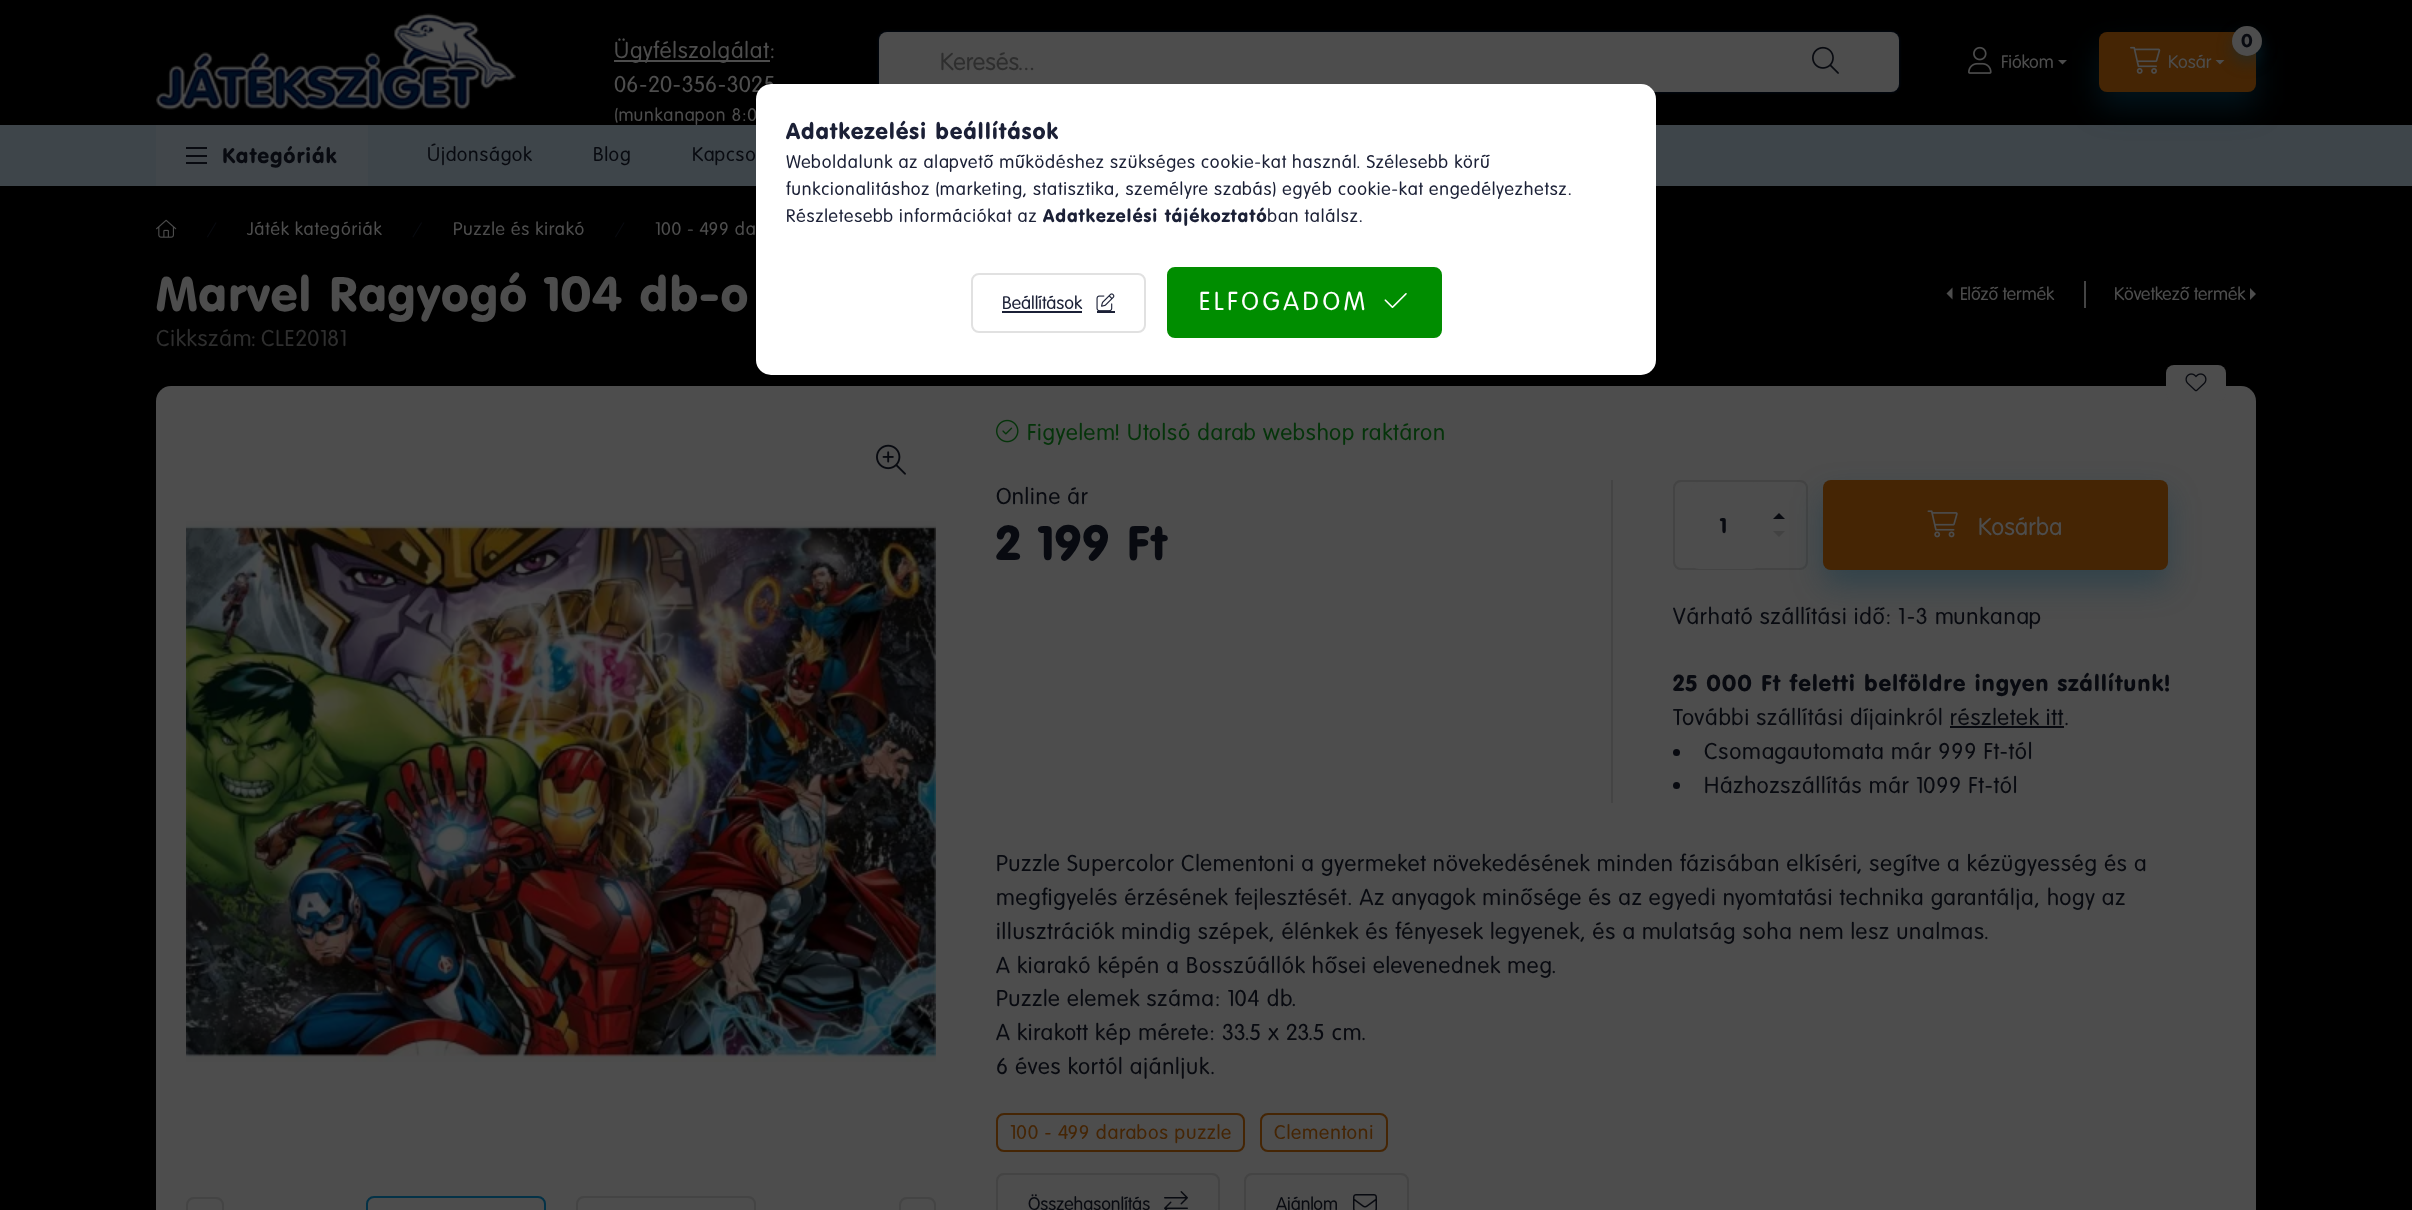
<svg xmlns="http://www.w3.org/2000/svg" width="2412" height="1210">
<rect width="100%" height="100%" fill="#000"/>
<image x="156" y="13" width="360" height="97" href="media/1.png"/>
<rect x="614" y="60" width="156" height="2" fill="#4d4d4d"/>
<text x="614" y="58" style="font-family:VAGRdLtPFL;font-size:22.5px;letter-spacing:0.9px;fill:#4d4d4d">Ügyfélszolgálat:</text>
<text x="614" y="92" style="font-family:VAGRdLtPFL;font-size:22.5px;letter-spacing:0.9px;fill:#4d4d4d">06-20-356-3025</text>
<text x="614" y="121" style="font-family:VAGRdLtPFL;font-size:18px;letter-spacing:0.9px;fill:#4d4d4d">(munkanapon 8:0</text>
<rect x="879" y="32" width="1020" height="60" rx="8" fill="#000e21" filter="blur(1.5px)"/>
<rect x="879" y="32" width="1020" height="60" rx="8" fill="#4d4d4d"/>
<text x="940" y="70" style="font-family:VAGRdLtPFL;font-size:24px;fill:#2e2e2e">Keresés...</text>
<image x="1812" y="46" width="27" height="28" href="media/2.png"/>
<image x="1968" y="46" width="24" height="28" href="media/3.png"/>
<text x="2001" y="68" style="font-family:VAGRdLtPFL;font-size:18px;fill:#4d4d4d">Fiókom</text>
<rect y="125" width="2412" height="61" fill="#3e454a"/>
<rect x="2099" y="47" width="157" height="60" rx="8" fill="#04324766" filter="blur(15px)"/>
<path d="M2058 60h9l-4.5 4.5z" fill="#4d4d4d"/>
<rect x="2099" y="32" width="157" height="60" rx="8" fill="#452504"/>
<rect x="2232" y="33" width="30" height="30" rx="15" fill="#04324766" filter="blur(7.5px)"/>
<circle cx="2247" cy="41" r="15" fill="#4d4d4d"/>
<text x="2241" y="47" style="font-family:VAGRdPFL;font-size:18px;fill:#080a10">0</text>
<image x="2130" y="46" width="31" height="28" href="media/4.png"/>
<text x="2168" y="68" style="font-family:VAGRdLtPFL;font-size:18px;fill:#4d4d4d">Kosár</text>
<path d="M2215.5 60h9l-4.5 4.5z" fill="#4d4d4d"/>
<rect x="156" y="125" width="212" height="61" fill="#42474b"/>
<rect x="186" y="147" width="21" height="2" fill="#080a10"/>
<rect x="186" y="155" width="21" height="2" fill="#080a10"/>
<rect x="186" y="162" width="21" height="2" fill="#080a10"/>
<text x="222" y="163" style="font-family:VAGRdPFL;font-size:21px;letter-spacing:0.9px;fill:#080a10">Kategóriák</text>
<text x="427" y="161" style="font-family:VAGRdLtPFL;font-size:19.5px;letter-spacing:0.9px;fill:#080a10">Újdonságok</text>
<text x="593" y="161" style="font-family:VAGRdLtPFL;font-size:19.5px;letter-spacing:0.9px;fill:#080a10">Blog</text>
<text x="692" y="161" style="font-family:VAGRdLtPFL;font-size:19.5px;letter-spacing:0.9px;fill:#080a10">Kapcso</text>
<image x="156" y="219" width="21" height="19" href="media/5.png"/>
<image x="207" y="222" width="10" height="16" href="media/6.png"/>
<text x="247" y="235" style="font-family:VAGRdLtPFL;font-size:18px;letter-spacing:0.9px;fill:#4d4d4d">Játék kategóriák</text>
<image x="412" y="222" width="10" height="16" href="media/7.png"/>
<text x="453" y="235" style="font-family:VAGRdLtPFL;font-size:18px;letter-spacing:0.9px;fill:#4d4d4d">Puzzle és kirakó</text>
<image x="615" y="222" width="10" height="16" href="media/6.png"/>
<text x="655" y="235" style="font-family:VAGRdLtPFL;font-size:18px;letter-spacing:0.9px;fill:#4d4d4d">100 - 499 da</text>
<text x="156" y="311" style="font-family:VAGRdPFL;font-size:48px;letter-spacing:0.9px;fill:#4d4d4d">Marvel Ragyogó 104 db-o</text>
<path d="M1952.5 299.5v-12l-6 6z" fill="#4d4d4d"/>
<text x="1960" y="300" style="font-family:VAGRdLtPFL;font-size:18px;fill:#4d4d4d">Előző termék</text>
<rect x="2084" y="281" width="2" height="27" fill="#444"/>
<text x="2114" y="300" style="font-family:VAGRdLtPFL;font-size:18px;fill:#4d4d4d">Következő termék</text>
<path d="M2250 300v-12l6 6z" fill="#4d4d4d"/>
<text x="156" y="346" style="font-family:VAGRdLtPFL;font-size:22.5px;letter-spacing:0.9px;fill:#2e2e2e">Cikkszám:</text>
<text x="261" y="346" style="font-family:VAGRdLtPFL;font-size:22.5px;letter-spacing:0.9px;fill:#2e2e2e">CLE20181</text>
<rect x="156" y="386" width="2100" height="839" rx="15" fill="#4d4d4d"/>
<rect x="2166" y="365" width="60" height="36" rx="8" fill="#4d4d4d"/>
<image x="2185" y="373" width="22" height="19" href="media/8.png"/>
<image x="876" y="444" width="30" height="31" href="media/9.png"/>
<image x="186" y="521" width="750" height="541" href="media/10.png"/>
<rect x="187" y="1198" width="36" height="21" rx="7" fill="none" stroke="#444" stroke-width="2"/>
<rect x="367" y="1197" width="178" height="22" rx="7" fill="none" stroke="#043247" stroke-width="2"/>
<rect x="577" y="1197" width="178" height="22" rx="7" fill="none" stroke="#444" stroke-width="2"/>
<rect x="900" y="1198" width="35" height="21" rx="7" fill="none" stroke="#444" stroke-width="2"/>
<image x="996" y="419" width="23" height="24" href="media/11.png"/>
<text x="1027" y="440" style="font-family:VAGRdLtPFL;font-size:22.5px;letter-spacing:0.9px;fill:#05340a">Figyelem! Utolsó darab webshop raktáron</text>
<text x="996" y="504" style="font-family:VAGRdLtPFL;font-size:22.5px;letter-spacing:0.9px;fill:#080a10">Online ár</text>
<text x="996" y="560" style="font-family:VAGRdPFL;font-size:48px;letter-spacing:0.9px;fill:#080a10">2 199 Ft</text>
<rect x="1611" y="480" width="2" height="323" fill="#444"/>
<rect x="1674" y="481" width="133" height="88" rx="7" fill="none" stroke="#444" stroke-width="2"/>
<rect x="1691" y="482" width="69" height="87" rx="8" fill="#4d4d4d"/>
<text x="1720" y="533" style="font-family:VAGRdPFL;font-size:21px;fill:#080a10">1</text>
<path d="M1785 519h-12l6-6z" fill="#080a10"/>
<path d="M1773 531h12l-6 6z" fill="#424242"/>
<rect x="1823" y="495" width="345" height="90" rx="8" fill="#04324766" filter="blur(15px)"/>
<rect x="1823" y="480" width="345" height="90" rx="8" fill="#452504"/>
<image x="1927" y="510" width="31" height="28" href="media/12.png"/>
<text x="1978" y="535" style="font-family:VAGRdLtPFL;font-size:24px;fill:#4d4d4d">Kosárba</text>
<text x="1673" y="624" style="font-family:VAGRdLtPFL;font-size:22.5px;letter-spacing:0.9px;fill:#080a10">Várható szállítási idő: 1-3 munkanap</text>
<text x="1673" y="691" style="font-family:VAGRdPFL;font-size:22.5px;letter-spacing:0.9px;fill:#080a10">25 000 Ft feletti belföldre ingyen szállítunk!</text>
<text x="1673" y="725" style="font-family:VAGRdLtPFL;font-size:22.5px;letter-spacing:0.9px;fill:#080a10">További szállítási díjainkról részletek itt.</text>
<rect x="1950" y="726" width="114" height="2" fill="#080a10"/>
<circle cx="1676.5" cy="752.5" r="3.5" fill="#080a10"/>
<text x="1704" y="759" style="font-family:VAGRdLtPFL;font-size:22.5px;letter-spacing:0.9px;fill:#080a10">Csomagautomata már 999 Ft-tól</text>
<circle cx="1676.5" cy="785.5" r="3.5" fill="#080a10"/>
<text x="1704" y="793" style="font-family:VAGRdLtPFL;font-size:22.5px;letter-spacing:0.9px;fill:#080a10">Házhozszállítás már 1099 Ft-tól</text>
<text x="996" y="871" style="font-family:VAGRdLtPFL;font-size:22.5px;letter-spacing:0.9px;fill:#080a10">Puzzle Supercolor Clementoni a gyermeket növekedésének minden fázisában elkíséri, segítve a kézügyesség és a</text>
<text x="996" y="905" style="font-family:VAGRdLtPFL;font-size:22.5px;letter-spacing:0.9px;fill:#080a10">megfigyelés érzésének fejlesztését. Az anyagok minősége és az egyedi nyomtatási technika garantálja, hogy az</text>
<text x="996" y="939" style="font-family:VAGRdLtPFL;font-size:22.5px;letter-spacing:0.9px;fill:#080a10">illusztrációk mindig szépek, élénkek és fényesek legyenek, és a mulatság soha nem lesz unalmas.</text>
<text x="996" y="973" style="font-family:VAGRdLtPFL;font-size:22.5px;letter-spacing:0.9px;fill:#080a10">A kiarakó képén a Bosszúállók hősei elevenednek meg.</text>
<text x="996" y="1006" style="font-family:VAGRdLtPFL;font-size:22.5px;letter-spacing:0.9px;fill:#080a10">Puzzle elemek száma: 104 db.</text>
<text x="996" y="1040" style="font-family:VAGRdLtPFL;font-size:22.5px;letter-spacing:0.9px;fill:#080a10">A kirakott kép mérete: 33.5 x 23.5 cm.</text>
<text x="996" y="1074" style="font-family:VAGRdLtPFL;font-size:22.5px;letter-spacing:0.9px;fill:#080a10">6 éves kortól ajánljuk.</text>
<rect x="997" y="1114" width="247" height="37" rx="7" fill="none" stroke="#452504" stroke-width="2"/>
<text x="1010" y="1139" style="font-family:VAGRdLtPFL;font-size:19.5px;letter-spacing:0.9px;fill:#452504">100 - 499 darabos puzzle</text>
<rect x="1261" y="1114" width="126" height="37" rx="7" fill="none" stroke="#452504" stroke-width="2"/>
<text x="1274" y="1139" style="font-family:VAGRdLtPFL;font-size:19.5px;letter-spacing:0.9px;fill:#452504">Clementoni</text>
<rect x="997" y="1174" width="222" height="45" rx="7" fill="none" stroke="#444" stroke-width="2"/>
<text x="1028" y="1210" style="font-family:VAGRdLtPFL;font-size:18px;fill:#080a10">Összehasonlítás</text>
<image x="1164" y="1191" width="24" height="19" href="media/13.png"/>
<rect x="1245" y="1174" width="163" height="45" rx="7" fill="none" stroke="#444" stroke-width="2"/>
<text x="1276" y="1210" style="font-family:VAGRdLtPFL;font-size:18px;fill:#080a10">Ajánlom</text>
<image x="1353" y="1194" width="24" height="16" href="media/14.png"/>
<rect x="756" y="84" width="900" height="291" rx="15" fill="#fff"/>
<text x="786" y="139" style="font-family:VAGRdPFL;font-size:22.5px;letter-spacing:0.9px;fill:#1b2036">Adatkezelési beállítások</text>
<text x="786" y="168" style="font-family:VAGRdLtPFL;font-size:18px;letter-spacing:0.9px;fill:#1b2036">Weboldalunk az alapvető működéshez szükséges cookie-kat használ. Szélesebb körű</text>
<text x="786" y="195" style="font-family:VAGRdLtPFL;font-size:18px;letter-spacing:0.9px;fill:#1b2036">funkcionalitáshoz (marketing, statisztika, személyre szabás) egyéb cookie-kat engedélyezhetsz.</text>
<text x="786" y="222" style="font-family:VAGRdLtPFL;font-size:18px;letter-spacing:0.9px;fill:#1b2036">Részletesebb információkat az</text>
<text x="1043" y="222" style="font-family:VAGRdPFL;font-size:18px;letter-spacing:0.9px;fill:#1b2036">Adatkezelési tájékoztató</text>
<text x="1267" y="222" style="font-family:VAGRdLtPFL;font-size:18px;letter-spacing:0.9px;fill:#1b2036">ban találsz.</text>
<rect x="972" y="274" width="173" height="58" rx="7" fill="none" stroke="#e1e1e1" stroke-width="2"/>
<text x="1002" y="309" style="font-family:VAGRdLtPFL;font-size:18px;fill:#1b2036">Beállítások</text>
<rect x="1002" y="311" width="80" height="2" fill="#1b2036"/>
<image x="1096" y="293" width="19" height="18" href="media/15.png"/>
<rect x="1097" y="311" width="18" height="2" fill="#1b2036"/>
<rect x="1168" y="268" width="273" height="69" rx="7" fill="#008d00" stroke="#028d00" stroke-width="2"/>
<text x="1199" y="310" style="font-family:VAGRdLtPFL;font-size:25.5px;letter-spacing:3.75px;fill:#fff">ELFOGADOM</text>
<image x="1384" y="293" width="23" height="16" href="media/16.png"/>
</svg>
